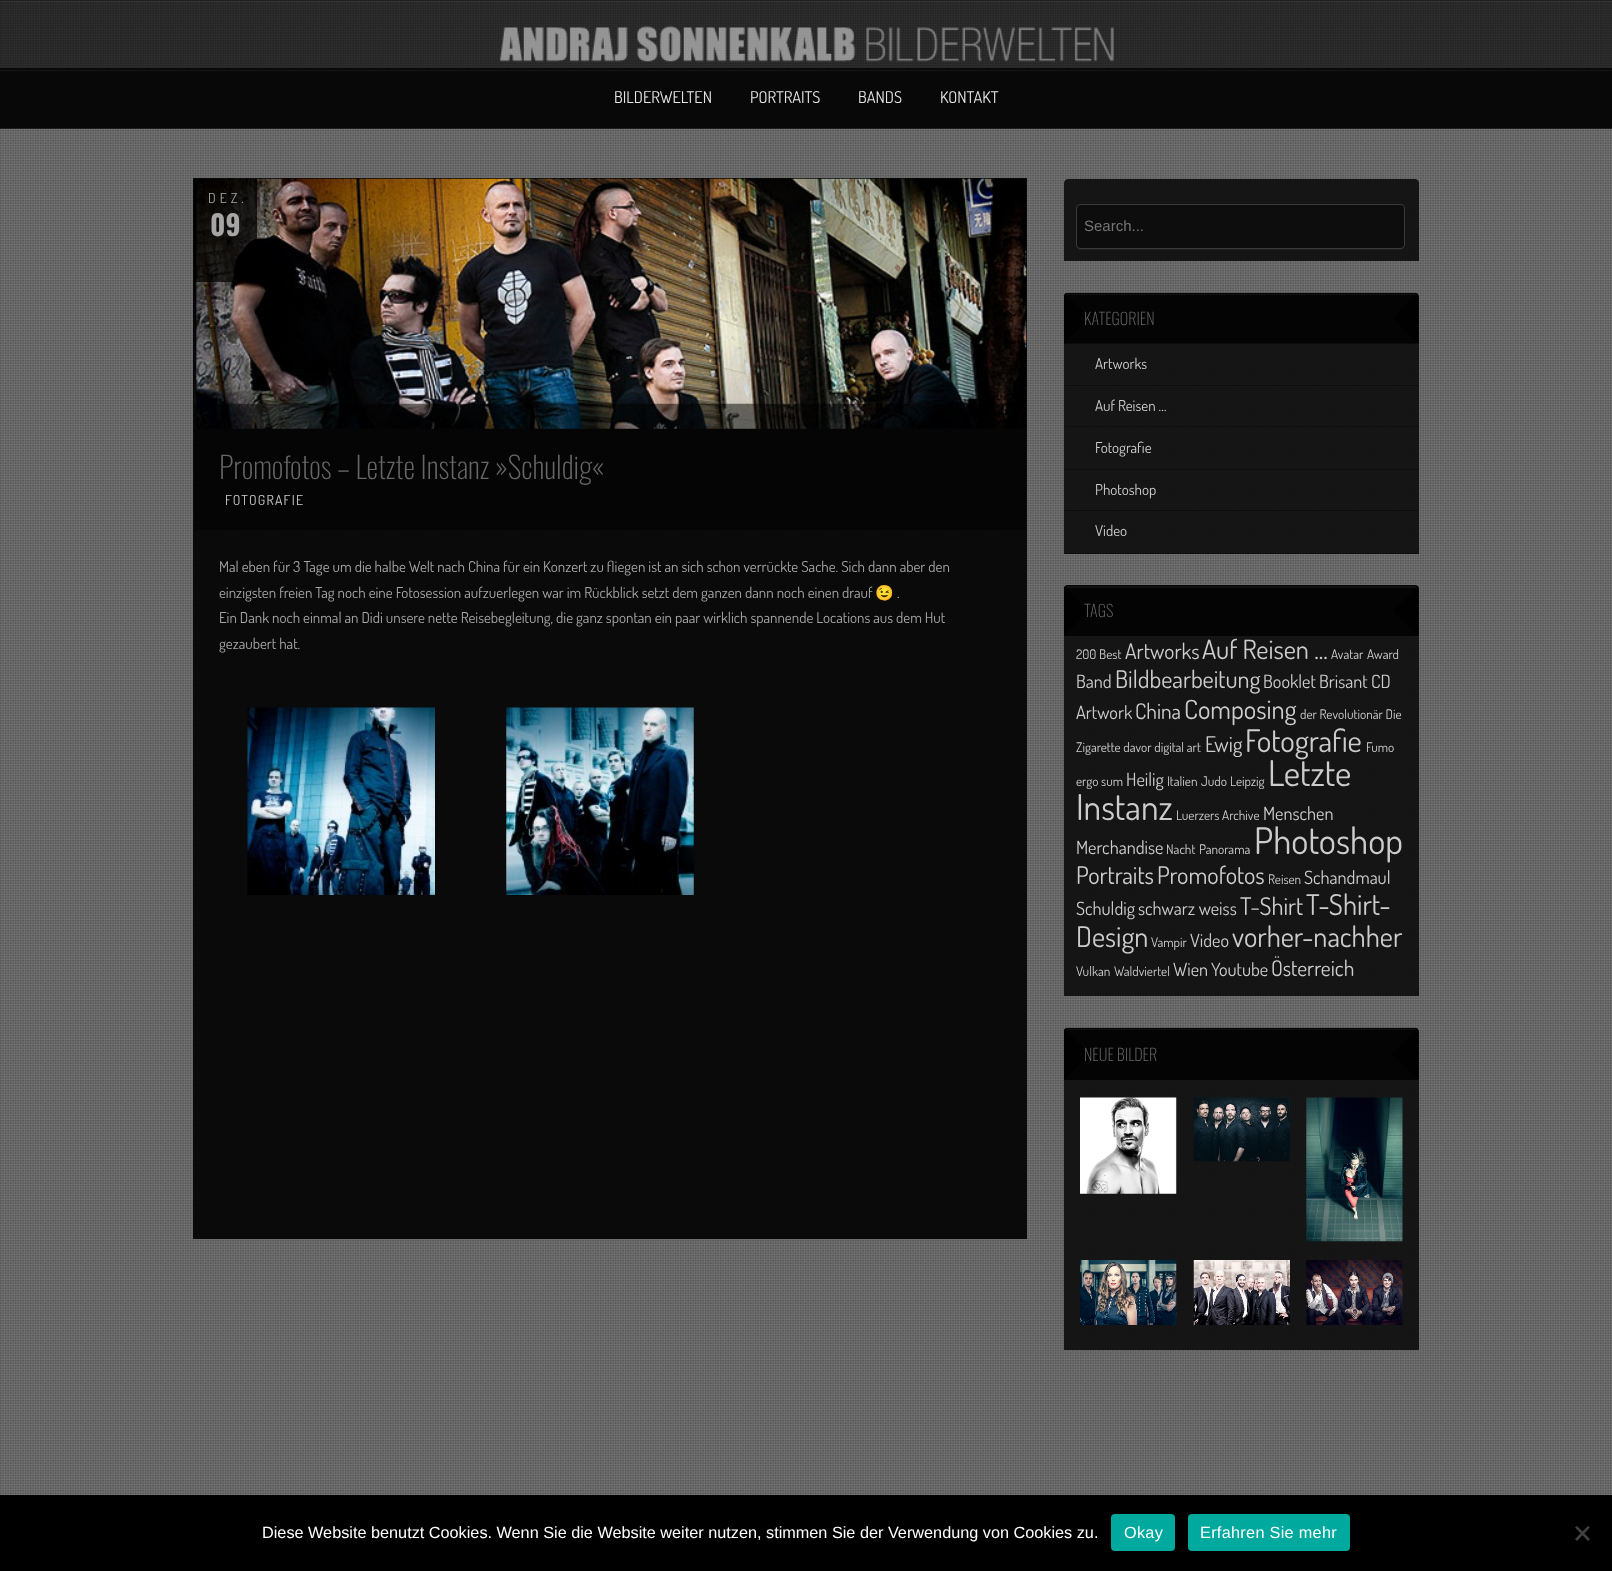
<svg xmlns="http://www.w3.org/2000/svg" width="1612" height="1571">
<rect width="100%" height="100%" fill="#6a6a6a"/>
<image x="0" y="1" width="1612" height="1494" href="media/1.png"/>
<image x="0" y="1" width="1612" height="1494" href="media/2.png"/>
<rect y="1" width="1612" height="127" fill="#00000099"/>
<rect y="1" width="1612" height="1" fill="#ffffff0d"/>
<rect width="1612" height="1" fill="#1f1f1f"/>
<rect y="128" width="1612" height="1" fill="#1f1f1f"/>
<image x="500" y="26" width="614" height="36" href="media/3.png"/>
<rect y="68" width="1612" height="60" fill="#000000cc"/>
<rect y="70" width="1612" height="1" fill="#141414"/>
<text x="614" y="103" style="font-family:Dosis;font-size:16.25px;fill:#e6e6e6">BILDERWELTEN</text>
<text x="750" y="103" style="font-family:Dosis;font-size:16.25px;fill:#e6e6e6">PORTRAITS</text>
<text x="858" y="103" style="font-family:Dosis;font-size:16.25px;fill:#e6e6e6">BANDS</text>
<text x="940" y="103" style="font-family:Dosis;font-size:16.25px;fill:#e6e6e6">KONTAKT</text>
<rect x="193" y="178" width="834" height="1061" fill="#000000e6"/>
<image x="194" y="178" width="833" height="251" href="media/4.png"/>
<rect x="194" y="179" width="63" height="103" fill="#000000b3"/>
<text x="208" y="203" style="font-family:Dosis;font-size:13.75px;letter-spacing:4px;fill:#a6a6a6">DEZ.</text>
<text x="210" y="236" style="font-family:Oswald;font-size:28px;font-weight:bold;fill:#a6a6a6">09</text>
<rect x="194" y="429" width="832" height="101" fill="#00000080"/>
<text x="219" y="479" style="font-family:Oswald;font-size:30px;font-weight:200;fill:#666">Promofotos – Letzte Instanz »Schuldig«</text>
<text x="225" y="505" style="font-family:Dosis;font-size:13.75px;letter-spacing:1.25px;fill:#ccc">FOTOGRAFIE</text>
<text x="219" y="572" style="font-family:Dosis;font-size:15px;fill:#a6a6a6">Mal eben für 3 Tage um die halbe Welt nach China für ein Konzert zu fliegen ist an sich schon verrückte Sache. Sich dann aber den</text>
<text x="219" y="598" style="font-family:Dosis;font-size:15px;fill:#a6a6a6">einzigsten freien Tag noch eine Fotosession aufzuerlegen war im Rückblick setzt dem ganzen dann noch einen drauf</text>
<text x="875" y="598" style="font-family:Noto Color Emoji;font-size:15px;fill:#a6a6a6">😉</text>
<text x="897" y="598" style="font-family:Dosis;font-size:15px;fill:#a6a6a6">.</text>
<text x="219" y="623" style="font-family:Dosis;font-size:15px;fill:#a6a6a6">Ein Dank noch einmal an Didi unsere nette Reisebegleitung, die ganz spontan ein paar wirklich spannende Locations aus dem Hut</text>
<text x="219" y="649" style="font-family:Dosis;font-size:15px;fill:#a6a6a6">gezaubert hat.</text>
<image x="247" y="707" width="188" height="188" href="media/5.png"/>
<image x="506" y="707" width="188" height="188" href="media/6.png"/>
<path d="M1068 179h347c2 0 4 2 4 4v78h-355v-78c0-2 2-4 4-4z" fill="#0c0c0ce6"/>
<path d="M1076 208v38c0 2 2 4 4 4h321c2 0 4-2 4-4v-1c0 2-2 4-4 4h-321c-2 0-4-2-4-4z" fill="#1f1f1f"/>
<rect x="1076" y="204" width="329" height="45" rx="4" fill="#0c0c0ce6"/>
<rect x="1076.5" y="204.5" width="328" height="44" rx="3.5" fill="none" stroke="#464646cc"/>
<text x="1084" y="231" style="font-family:Liberation Sans;font-size:15px;fill:#757575">Search...</text>
<path d="M1068 293h347c2 0 4 2 4 4v257h-355v-257c0-2 2-4 4-4z" fill="#0c0c0ce6"/>
<image x="1064" y="292" width="355" height="52" href="media/7.png"/>
<path d="M1068 295h347c1 0 3 1 3 3c0-2 0-4-2-4h-349l-2 1v3c0-2 1-3 3-3z" fill="#111"/>
<path d="M1419 296l-2-2l-24 24l26 26z" fill="#00000099"/>
<path d="M1065 294l-1 2v48l25-26z" fill="#00000099"/>
<text x="1084" y="325" style="font-family:Oswald;font-size:16.25px;font-weight:200;fill:#666">KATEGORIEN</text>
<rect x="1064" y="385" width="355" height="1" fill="#0e0e0e"/>
<text x="1095" y="369" style="font-family:Dosis;font-size:15px;fill:#ccc">Artworks</text>
<rect x="1064" y="426" width="355" height="1" fill="#0f0f0f"/>
<text x="1095" y="411" style="font-family:Dosis;font-size:15px;fill:#ccc">Auf Reisen …</text>
<rect x="1064" y="469" width="355" height="1" fill="#0f0f0f"/>
<text x="1095" y="453" style="font-family:Dosis;font-size:15px;fill:#ccc">Fotografie</text>
<rect x="1064" y="510" width="355" height="1" fill="#0e0e0e"/>
<text x="1095" y="495" style="font-family:Dosis;font-size:15px;fill:#ccc">Photoshop</text>
<rect x="1064" y="553" width="355" height="1" fill="#0e0e0e"/>
<text x="1095" y="536" style="font-family:Dosis;font-size:15px;fill:#ccc">Video</text>
<path d="M1068 585h347c2 0 4 2 4 4v407h-355v-407c0-2 2-4 4-4z" fill="#0c0c0ce6"/>
<image x="1064" y="585" width="355" height="51" href="media/8.png"/>
<path d="M1068 588h347c1 0 3 1 3 2v-3l-2-1h-348c-3 0-3 2-3 4c0-1 1-2 3-2z" fill="#111"/>
<path d="M1418 586l-25 25l26 25v-48z" fill="#00000099"/>
<path d="M1065 586c-1 1-1 2-1 3v47l25-25z" fill="#00000099"/>
<text x="1084" y="617" style="font-family:Oswald;font-size:16.25px;font-weight:200;fill:#666">TAGS</text>
<text x="1076" y="659" style="font-family:Dosis;font-size:13.25px;fill:#ccc">200 Best</text>
<text x="1125" y="659" style="font-family:Dosis;font-size:21.5px;fill:#ccc">Artworks</text>
<text x="1202" y="659" style="font-family:Dosis;font-size:26.5px;fill:#ccc">Auf Reisen ...</text>
<text x="1331" y="659" style="font-family:Dosis;font-size:13.25px;fill:#ccc">Avatar</text>
<text x="1367" y="659" style="font-family:Dosis;font-size:13.25px;fill:#ccc">Award</text>
<text x="1076" y="688" style="font-family:Dosis;font-size:18.25px;fill:#ccc">Band</text>
<text x="1115" y="688" style="font-family:Dosis;font-size:24.25px;fill:#ccc">Bildbearbeitung</text>
<text x="1263" y="688" style="font-family:Dosis;font-size:18.25px;fill:#ccc">Booklet</text>
<text x="1319" y="688" style="font-family:Dosis;font-size:18.25px;fill:#ccc">Brisant</text>
<text x="1371" y="688" style="font-family:Dosis;font-size:18.25px;fill:#ccc">CD</text>
<text x="1076" y="719" style="font-family:Dosis;font-size:18.25px;fill:#ccc">Artwork</text>
<text x="1135" y="719" style="font-family:Dosis;font-size:21.5px;fill:#ccc">China</text>
<text x="1184" y="719" style="font-family:Dosis;font-size:26.5px;fill:#ccc">Composing</text>
<text x="1300" y="719" style="font-family:Dosis;font-size:13.25px;fill:#ccc">der Revolutionär Die</text>
<text x="1076" y="752" style="font-family:Dosis;font-size:13.25px;fill:#ccc">Zigarette davor digital art</text>
<text x="1205" y="752" style="font-family:Dosis;font-size:21.5px;fill:#ccc">Ewig</text>
<text x="1245" y="752" style="font-family:Dosis;font-size:31px;fill:#ccc">Fotografie</text>
<text x="1366" y="752" style="font-family:Dosis;font-size:13.25px;fill:#ccc">Fumo</text>
<text x="1076" y="786" style="font-family:Dosis;font-size:13.25px;fill:#ccc">ergo sum</text>
<text x="1126" y="786" style="font-family:Dosis;font-size:18.25px;fill:#ccc">Heilig</text>
<text x="1167" y="786" style="font-family:Dosis;font-size:13.25px;fill:#ccc">Italien</text>
<text x="1201" y="786" style="font-family:Dosis;font-size:13.25px;fill:#ccc">Judo</text>
<text x="1230" y="786" style="font-family:Dosis;font-size:13.25px;fill:#ccc">Leipzig</text>
<text x="1268" y="786" style="font-family:Dosis;font-size:35.5px;fill:#ccc">Letzte</text>
<text x="1076" y="820" style="font-family:Dosis;font-size:35.5px;fill:#ccc">Instanz</text>
<text x="1176" y="820" style="font-family:Dosis;font-size:13.25px;fill:#ccc">Luerzers Archive</text>
<text x="1263" y="820" style="font-family:Dosis;font-size:18.25px;fill:#ccc">Menschen</text>
<text x="1076" y="854" style="font-family:Dosis;font-size:18.25px;fill:#ccc">Merchandise</text>
<text x="1166" y="854" style="font-family:Dosis;font-size:13.25px;fill:#ccc">Nacht</text>
<text x="1199" y="854" style="font-family:Dosis;font-size:13.25px;fill:#ccc">Panorama</text>
<text x="1254" y="854" style="font-family:Dosis;font-size:36.5px;fill:#ccc">Photoshop</text>
<text x="1076" y="884" style="font-family:Dosis;font-size:24.25px;fill:#ccc">Portraits</text>
<text x="1157" y="884" style="font-family:Dosis;font-size:24.25px;fill:#ccc">Promofotos</text>
<text x="1268" y="884" style="font-family:Dosis;font-size:13.25px;fill:#ccc">Reisen</text>
<text x="1304" y="884" style="font-family:Dosis;font-size:18.25px;fill:#ccc">Schandmaul</text>
<text x="1076" y="915" style="font-family:Dosis;font-size:18.25px;fill:#ccc">Schuldig</text>
<text x="1138" y="915" style="font-family:Dosis;font-size:18.25px;fill:#ccc">schwarz weiss</text>
<text x="1240" y="915" style="font-family:Dosis;font-size:24.25px;fill:#ccc">T-Shirt</text>
<text x="1306" y="915" style="font-family:Dosis;font-size:28.5px;fill:#ccc">T-Shirt-</text>
<text x="1076" y="947" style="font-family:Dosis;font-size:28.5px;fill:#ccc">Design</text>
<text x="1151" y="947" style="font-family:Dosis;font-size:13.25px;fill:#ccc">Vampir</text>
<text x="1190" y="947" style="font-family:Dosis;font-size:18.25px;fill:#ccc">Video</text>
<text x="1232" y="947" style="font-family:Dosis;font-size:28.5px;fill:#ccc">vorher-nachher</text>
<text x="1076" y="976" style="font-family:Dosis;font-size:13.25px;fill:#ccc">Vulkan</text>
<text x="1114" y="976" style="font-family:Dosis;font-size:13.25px;fill:#ccc">Waldviertel</text>
<text x="1173" y="976" style="font-family:Dosis;font-size:18.25px;fill:#ccc">Wien</text>
<text x="1211" y="976" style="font-family:Dosis;font-size:18.25px;fill:#ccc">Youtube</text>
<text x="1271" y="976" style="font-family:Dosis;font-size:21.5px;fill:#ccc">Österreich</text>
<path d="M1068 1028h347c2 0 4 2 4 4v318h-355v-318c0-2 2-4 4-4z" fill="#0c0c0ce6"/>
<image x="1064" y="1027" width="355" height="53" href="media/9.png"/>
<path d="M1068 1030h347c1 0 3 1 3 2c0-2-1-3-2-3h-348c-2 0-3 1-3 3c0-1 1-2 3-2z" fill="#111"/>
<path d="M1419 1031v49l-27-26l25-25z" fill="#00000099"/>
<path d="M1065 1029l-1 2v49l26-26z" fill="#00000099"/>
<text x="1084" y="1061" style="font-family:Oswald;font-size:16.25px;font-weight:200;fill:#666">NEUE BILDER</text>
<image x="1080" y="1097" width="97" height="97" href="media/10.png"/>
<image x="1193" y="1097" width="97" height="65" href="media/11.png"/>
<image x="1306" y="1097" width="97" height="145" href="media/12.png"/>
<image x="1080" y="1260" width="97" height="65" href="media/13.png"/>
<image x="1193" y="1260" width="97" height="65" href="media/14.png"/>
<image x="1306" y="1260" width="97" height="65" href="media/15.png"/>
<rect y="1495" width="1612" height="76" fill="#000"/>
<text x="262" y="1538" style="font-family:Liberation Sans;font-size:16.25px;fill:#fff">Diese Website benutzt Cookies. Wenn Sie die Website weiter nutzen, stimmen Sie der Verwendung von Cookies zu.</text>
<rect x="1111" y="1514" width="64" height="37" rx="4" fill="#00a99d"/>
<text x="1124" y="1538" style="font-family:Liberation Sans;font-size:16.25px;letter-spacing:0.3px;fill:#fff">Okay</text>
<rect x="1188" y="1514" width="162" height="37" rx="4" fill="#00a99d"/>
<text x="1200" y="1538" style="font-family:Liberation Sans;font-size:16.25px;letter-spacing:0.3px;fill:#fff">Erfahren Sie mehr</text>
<path d="M1588 1526l2 1.5l-13 13.5l-2-2z" fill="#404040"/>
<path d="M1575 1527.5l2-1.5l13 13l-2 2z" fill="#404040"/>
</svg>
